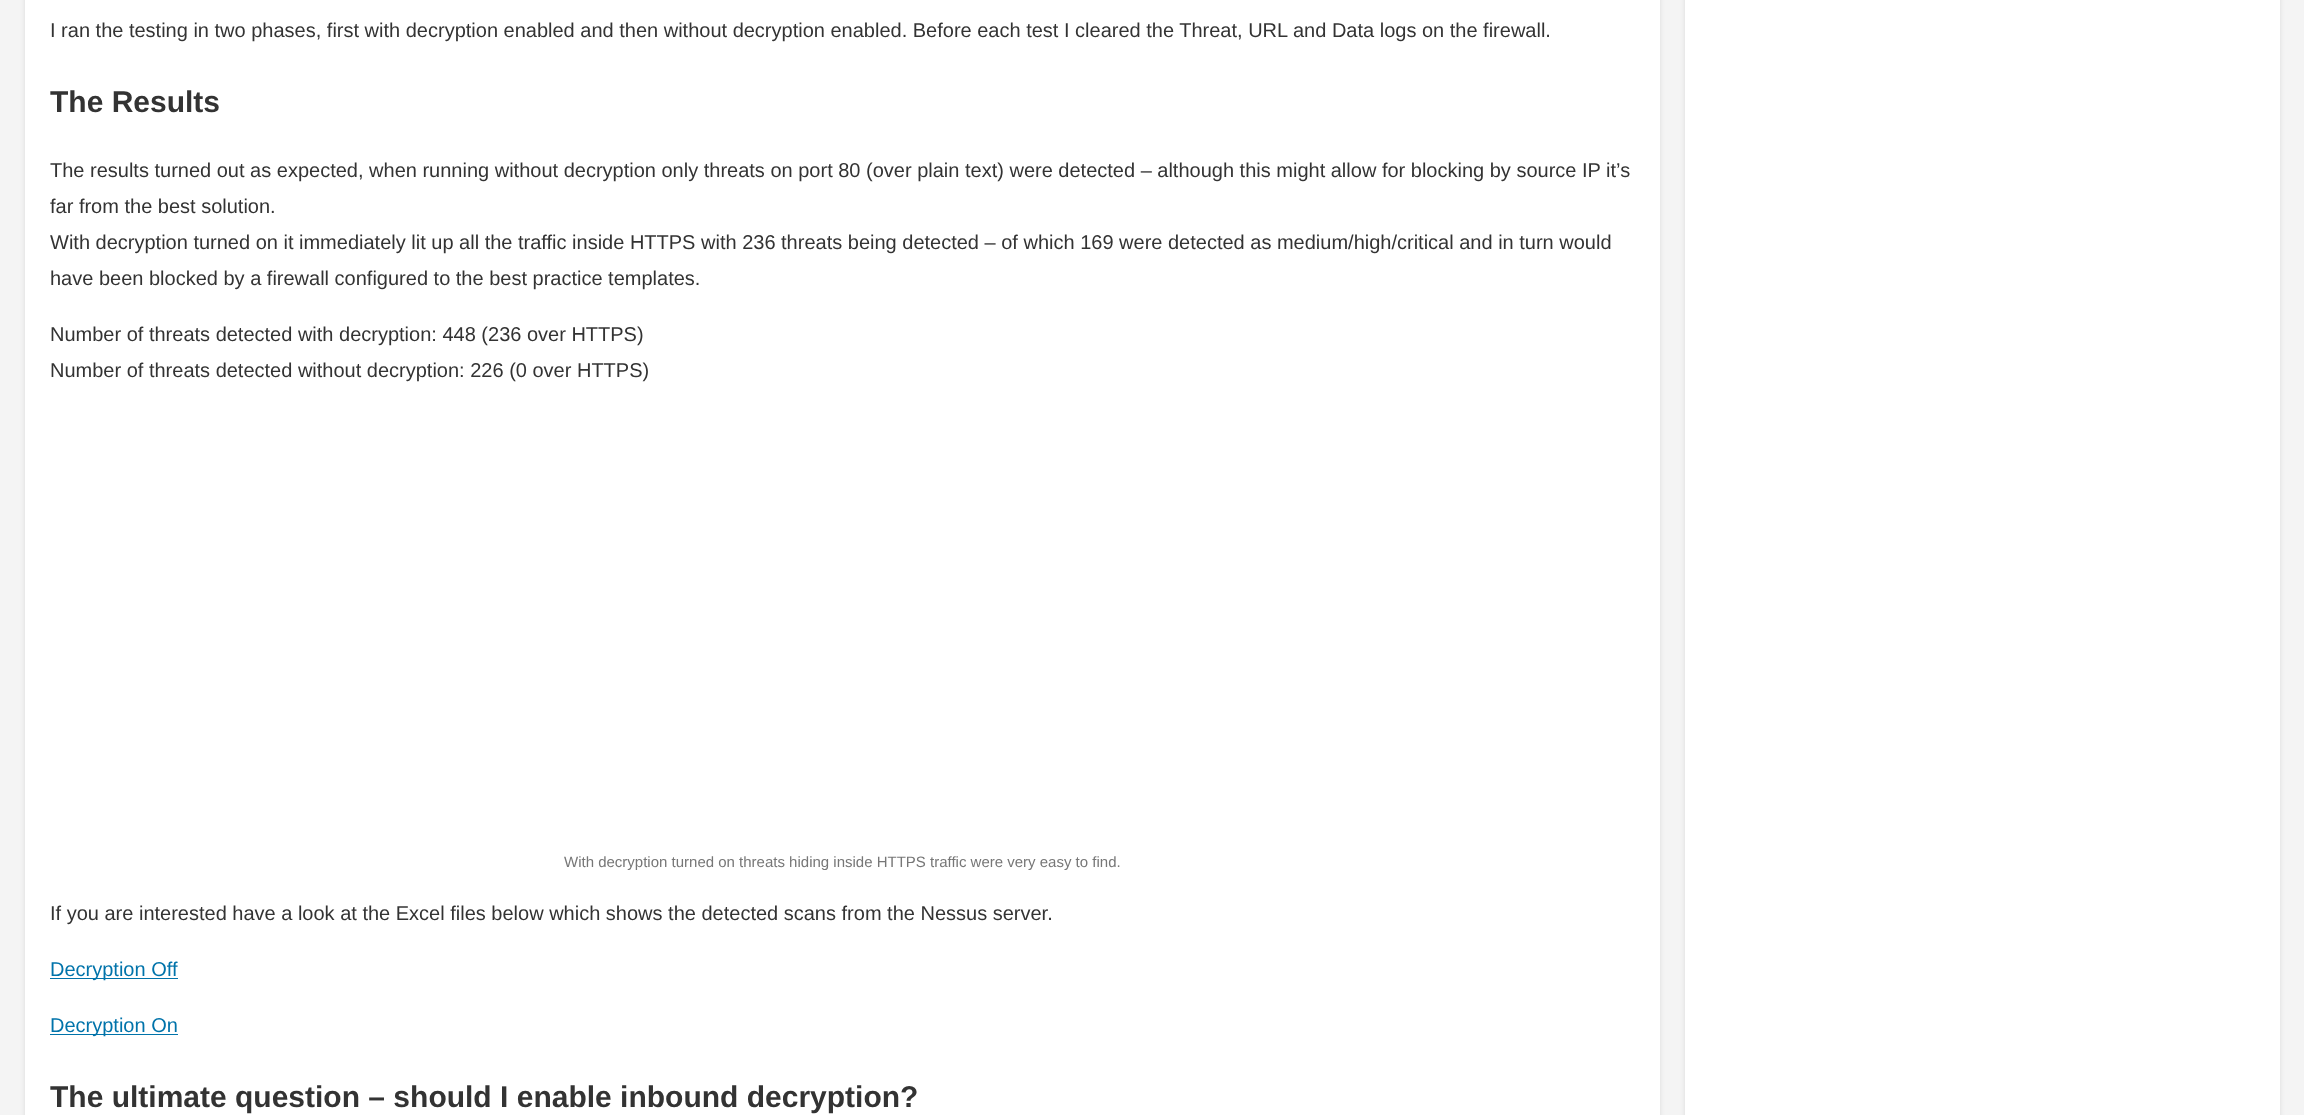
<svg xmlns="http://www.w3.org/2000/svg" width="2304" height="1115">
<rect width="100%" height="100%" fill="#f4f4f4"/>
<rect x="25" y="-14" width="1635" height="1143" rx="6" fill="#0000001a" filter="blur(2.5px)"/>
<rect x="25" width="1635" height="1115" fill="#fff"/>
<text x="50" y="37" style="font-family:Liberation Sans;font-size:20px;fill:#333">I ran the testing in two phases, first with decryption enabled and then without decryption enabled. Before each test I cleared the Threat, URL and Data logs on the firewall.</text>
<text x="50" y="112" style="font-family:Liberation Sans;font-size:30px;font-weight:bold;fill:#333">The Results</text>
<text x="50" y="177" style="font-family:Liberation Sans;font-size:20px;fill:#333">The results turned out as expected, when running without decryption only threats on port 80 (over plain text) were detected – although this might allow for blocking by source IP it’s</text>
<text x="50" y="213" style="font-family:Liberation Sans;font-size:20px;fill:#333">far from the best solution.</text>
<text x="50" y="249" style="font-family:Liberation Sans;font-size:20px;fill:#333">With decryption turned on it immediately lit up all the traffic inside HTTPS with 236 threats being detected – of which 169 were detected as medium/high/critical and in turn would</text>
<text x="50" y="285" style="font-family:Liberation Sans;font-size:20px;fill:#333">have been blocked by a firewall configured to the best practice templates.</text>
<text x="50" y="341" style="font-family:Liberation Sans;font-size:20px;fill:#333">Number of threats detected with decryption: 448 (236 over HTTPS)</text>
<text x="50" y="377" style="font-family:Liberation Sans;font-size:20px;fill:#333">Number of threats detected without decryption: 226 (0 over HTTPS)</text>
<text x="564" y="867" style="font-family:Liberation Sans;font-size:15px;fill:#777">With decryption turned on threats hiding inside HTTPS traffic were very easy to find.</text>
<text x="50" y="920" style="font-family:Liberation Sans;font-size:20px;fill:#333">If you are interested have a look at the Excel files below which shows the detected scans from the Nessus server.</text>
<rect x="50" y="978" width="128" height="1" fill="#0073aa"/>
<text x="50" y="976" style="font-family:Liberation Sans;font-size:20px;fill:#0073aa">Decryption Off</text>
<rect x="50" y="1034" width="128" height="1" fill="#0073aa"/>
<text x="50" y="1032" style="font-family:Liberation Sans;font-size:20px;fill:#0073aa">Decryption On</text>
<text x="50" y="1107" style="font-family:Liberation Sans;font-size:30px;font-weight:bold;fill:#333">The ultimate question – should I enable inbound decryption?</text>
<rect x="1685" y="-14" width="595" height="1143" rx="6" fill="#0000001a" filter="blur(2.5px)"/>
<rect x="1685" width="595" height="1115" fill="#fff"/>
</svg>
